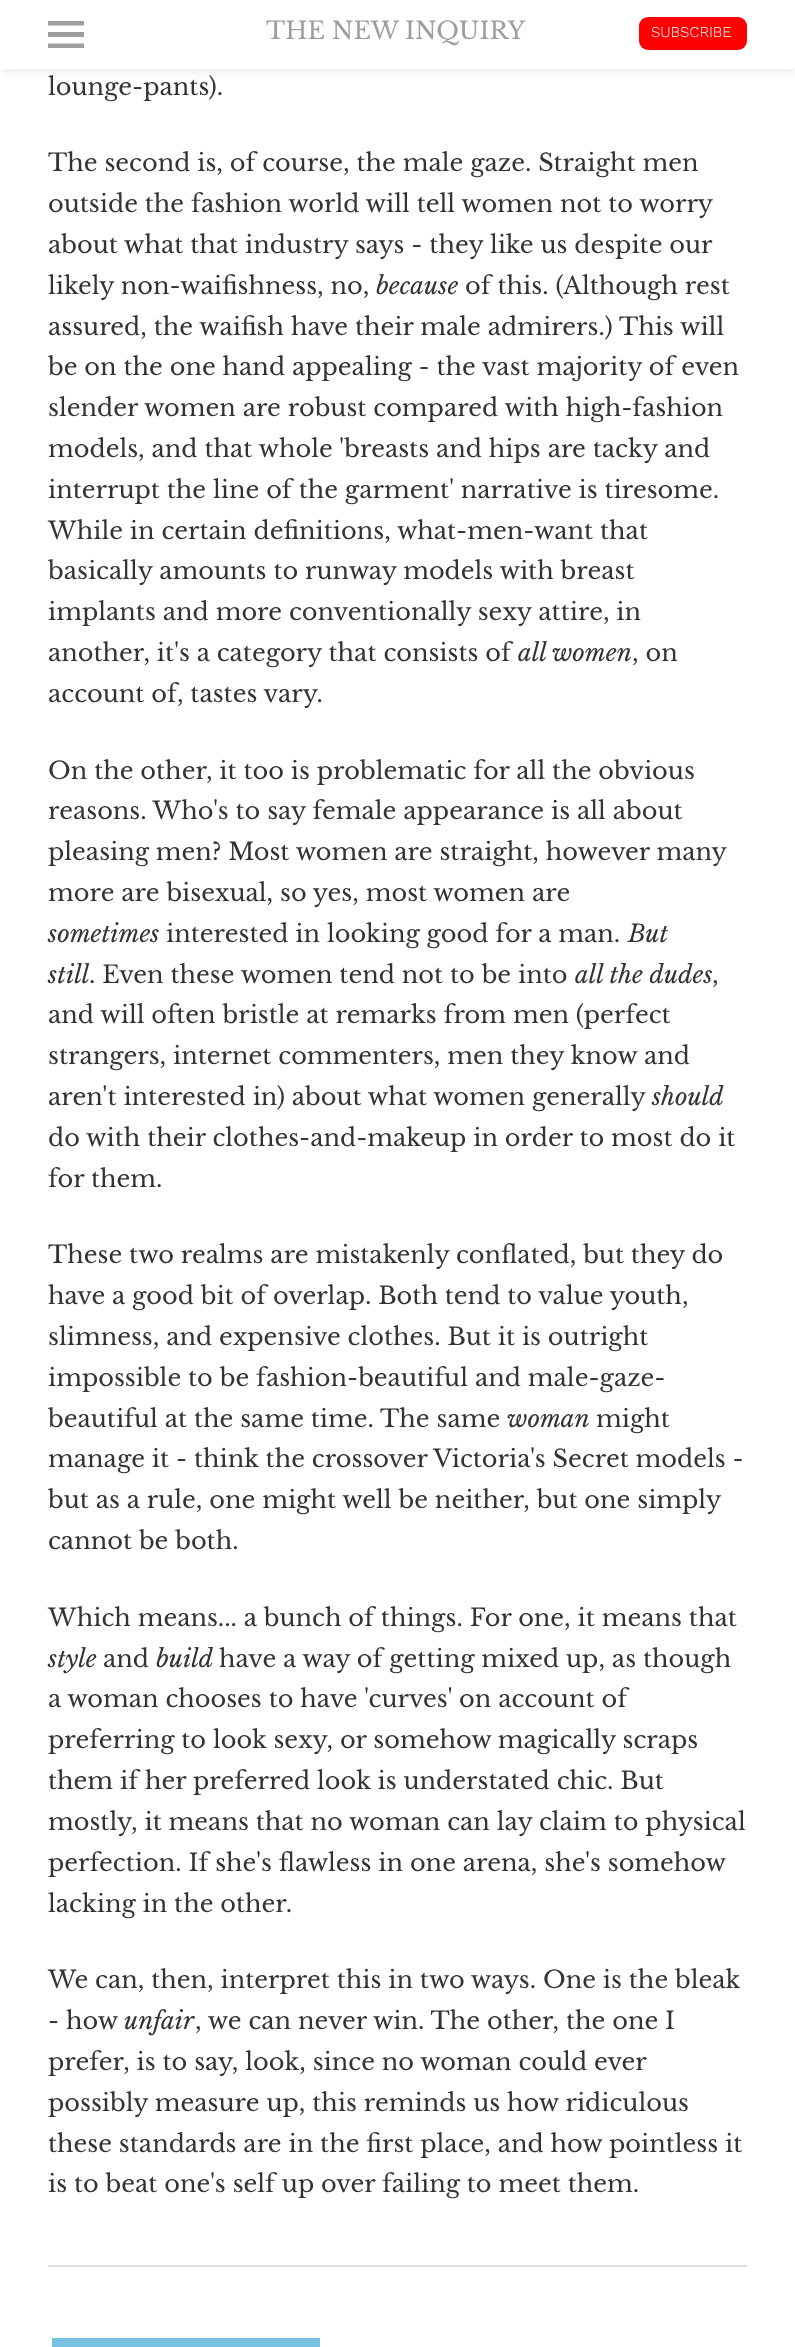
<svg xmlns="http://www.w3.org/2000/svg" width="795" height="2347">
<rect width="100%" height="100%" fill="#fff"/>
<rect x="2" y="3" width="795" height="69" fill="#3232321a" filter="blur(4px)"/>
<rect width="795" height="69" fill="#fff"/>
<path d="M48 48v-4.5h36v4.5zm0-27h36v4.5h-36zm0 16v-5h36v5z" fill="#9e9e9e"/>
<text x="266" y="39" style="font-family:Libre Baskerville;font-size:24px;fill:#9e9e9e">THE NEW INQUIRY</text>
<rect x="639" y="17" width="108" height="33" rx="9" fill="#f00"/>
<text x="651" y="37" style="font-family:Work Sans;font-size:15px;font-weight:300;fill:#fff">SUBSCRIBE</text>
<text x="48" y="95" style="font-family:Libre Baskerville;font-size:24px;fill:#333">lounge-pants).</text>
<text x="48" y="171" style="font-family:Libre Baskerville;font-size:24px;fill:#333">The second is, of course, the male gaze. Straight men</text>
<text x="48" y="212" style="font-family:Libre Baskerville;font-size:24px;fill:#333">outside the fashion world will tell women not to worry</text>
<text x="48" y="253" style="font-family:Libre Baskerville;font-size:24px;fill:#333">about what that industry says - they like us despite our</text>
<text x="48" y="294" style="font-family:Libre Baskerville;font-size:24px;fill:#333">likely non-waifishness, no,</text>
<text x="376" y="294" style="font-family:Libre Baskerville;font-size:24px;font-style:italic;fill:#333">because</text>
<text x="465" y="294" style="font-family:Libre Baskerville;font-size:24px;fill:#333">of this. (Although rest</text>
<text x="48" y="335" style="font-family:Libre Baskerville;font-size:24px;fill:#333">assured, the waifish have their male admirers.) This will</text>
<text x="48" y="375" style="font-family:Libre Baskerville;font-size:24px;fill:#333">be on the one hand appealing - the vast majority of even</text>
<text x="48" y="416" style="font-family:Libre Baskerville;font-size:24px;fill:#333">slender women are robust compared with high-fashion</text>
<text x="48" y="457" style="font-family:Libre Baskerville;font-size:24px;fill:#333">models, and that whole 'breasts and hips are tacky and</text>
<text x="48" y="498" style="font-family:Libre Baskerville;font-size:24px;fill:#333">interrupt the line of the garment' narrative is tiresome.</text>
<text x="48" y="539" style="font-family:Libre Baskerville;font-size:24px;fill:#333">While in certain definitions, what-men-want that</text>
<text x="48" y="579" style="font-family:Libre Baskerville;font-size:24px;fill:#333">basically amounts to runway models with breast</text>
<text x="48" y="620" style="font-family:Libre Baskerville;font-size:24px;fill:#333">implants and more conventionally sexy attire, in</text>
<text x="48" y="661" style="font-family:Libre Baskerville;font-size:24px;fill:#333">another, it's a category that consists of</text>
<text x="518" y="661" style="font-family:Libre Baskerville;font-size:24px;font-style:italic;fill:#333">all women</text>
<text x="632" y="661" style="font-family:Libre Baskerville;font-size:24px;fill:#333">, on</text>
<text x="48" y="702" style="font-family:Libre Baskerville;font-size:24px;fill:#333">account of, tastes vary.</text>
<text x="48" y="779" style="font-family:Libre Baskerville;font-size:24px;fill:#333">On the other, it too is problematic for all the obvious</text>
<text x="48" y="819" style="font-family:Libre Baskerville;font-size:24px;fill:#333">reasons. Who's to say female appearance is all about</text>
<text x="48" y="860" style="font-family:Libre Baskerville;font-size:24px;fill:#333">pleasing men? Most women are straight, however many</text>
<text x="48" y="901" style="font-family:Libre Baskerville;font-size:24px;fill:#333">more are bisexual, so yes, most women are</text>
<text x="48" y="942" style="font-family:Libre Baskerville;font-size:24px;font-style:italic;fill:#333">sometimes</text>
<text x="166" y="942" style="font-family:Libre Baskerville;font-size:24px;fill:#333">interested in looking good for a man.</text>
<text x="628" y="942" style="font-family:Libre Baskerville;font-size:24px;font-style:italic;fill:#333">But</text>
<text x="48" y="983" style="font-family:Libre Baskerville;font-size:24px;font-style:italic;fill:#333">still</text>
<text x="89" y="983" style="font-family:Libre Baskerville;font-size:24px;fill:#333">. Even these women tend not to be into</text>
<text x="575" y="983" style="font-family:Libre Baskerville;font-size:24px;font-style:italic;fill:#333">all the dudes</text>
<text x="712" y="983" style="font-family:Libre Baskerville;font-size:24px;fill:#333">,</text>
<text x="48" y="1023" style="font-family:Libre Baskerville;font-size:24px;fill:#333">and will often bristle at remarks from men (perfect</text>
<text x="48" y="1064" style="font-family:Libre Baskerville;font-size:24px;fill:#333">strangers, internet commenters, men they know and</text>
<text x="48" y="1105" style="font-family:Libre Baskerville;font-size:24px;fill:#333">aren't interested in) about what women generally</text>
<text x="652" y="1105" style="font-family:Libre Baskerville;font-size:24px;font-style:italic;fill:#333">should</text>
<text x="48" y="1146" style="font-family:Libre Baskerville;font-size:24px;fill:#333">do with their clothes-and-makeup in order to most do it</text>
<text x="48" y="1187" style="font-family:Libre Baskerville;font-size:24px;fill:#333">for them.</text>
<text x="48" y="1263" style="font-family:Libre Baskerville;font-size:24px;fill:#333">These two realms are mistakenly conflated, but they do</text>
<text x="48" y="1304" style="font-family:Libre Baskerville;font-size:24px;fill:#333">have a good bit of overlap. Both tend to value youth,</text>
<text x="48" y="1345" style="font-family:Libre Baskerville;font-size:24px;fill:#333">slimness, and expensive clothes. But it is outright</text>
<text x="48" y="1386" style="font-family:Libre Baskerville;font-size:24px;fill:#333">impossible to be fashion-beautiful and male-gaze-</text>
<text x="48" y="1427" style="font-family:Libre Baskerville;font-size:24px;fill:#333">beautiful at the same time. The same</text>
<text x="507" y="1427" style="font-family:Libre Baskerville;font-size:24px;font-style:italic;fill:#333">woman</text>
<text x="596" y="1427" style="font-family:Libre Baskerville;font-size:24px;fill:#333">might</text>
<text x="48" y="1467" style="font-family:Libre Baskerville;font-size:24px;fill:#333">manage it - think the crossover Victoria's Secret models -</text>
<text x="48" y="1508" style="font-family:Libre Baskerville;font-size:24px;fill:#333">but as a rule, one might well be neither, but one simply</text>
<text x="48" y="1549" style="font-family:Libre Baskerville;font-size:24px;fill:#333">cannot be both.</text>
<text x="48" y="1626" style="font-family:Libre Baskerville;font-size:24px;fill:#333">Which means... a bunch of things. For one, it means that</text>
<text x="48" y="1667" style="font-family:Libre Baskerville;font-size:24px;font-style:italic;fill:#333">style</text>
<text x="103" y="1667" style="font-family:Libre Baskerville;font-size:24px;fill:#333">and</text>
<text x="156" y="1667" style="font-family:Libre Baskerville;font-size:24px;font-style:italic;fill:#333">build</text>
<text x="219" y="1667" style="font-family:Libre Baskerville;font-size:24px;fill:#333">have a way of getting mixed up, as though</text>
<text x="48" y="1707" style="font-family:Libre Baskerville;font-size:24px;fill:#333">a woman chooses to have 'curves' on account of</text>
<text x="48" y="1748" style="font-family:Libre Baskerville;font-size:24px;fill:#333">preferring to look sexy, or somehow magically scraps</text>
<text x="48" y="1789" style="font-family:Libre Baskerville;font-size:24px;fill:#333">them if her preferred look is understated chic. But</text>
<text x="48" y="1830" style="font-family:Libre Baskerville;font-size:24px;fill:#333">mostly, it means that no woman can lay claim to physical</text>
<text x="48" y="1871" style="font-family:Libre Baskerville;font-size:24px;fill:#333">perfection. If she's flawless in one arena, she's somehow</text>
<text x="48" y="1912" style="font-family:Libre Baskerville;font-size:24px;fill:#333">lacking in the other.</text>
<text x="48" y="1988" style="font-family:Libre Baskerville;font-size:24px;fill:#333">We can, then, interpret this in two ways. One is the bleak</text>
<text x="48" y="2029" style="font-family:Libre Baskerville;font-size:24px;fill:#333">- how</text>
<text x="124" y="2029" style="font-family:Libre Baskerville;font-size:24px;font-style:italic;fill:#333">unfair</text>
<text x="195" y="2029" style="font-family:Libre Baskerville;font-size:24px;fill:#333">, we can never win. The other, the one I</text>
<text x="48" y="2070" style="font-family:Libre Baskerville;font-size:24px;fill:#333">prefer, is to say, look, since no woman could ever</text>
<text x="48" y="2111" style="font-family:Libre Baskerville;font-size:24px;fill:#333">possibly measure up, this reminds us how ridiculous</text>
<text x="48" y="2152" style="font-family:Libre Baskerville;font-size:24px;fill:#333">these standards are in the first place, and how pointless it</text>
<text x="48" y="2192" style="font-family:Libre Baskerville;font-size:24px;fill:#333">is to beat one's self up over failing to meet them.</text>
<rect x="48" y="2265" width="699" height="2" fill="#ddd"/>
<rect x="52" y="2338" width="268" height="9" fill="#77c2e2"/>
</svg>
